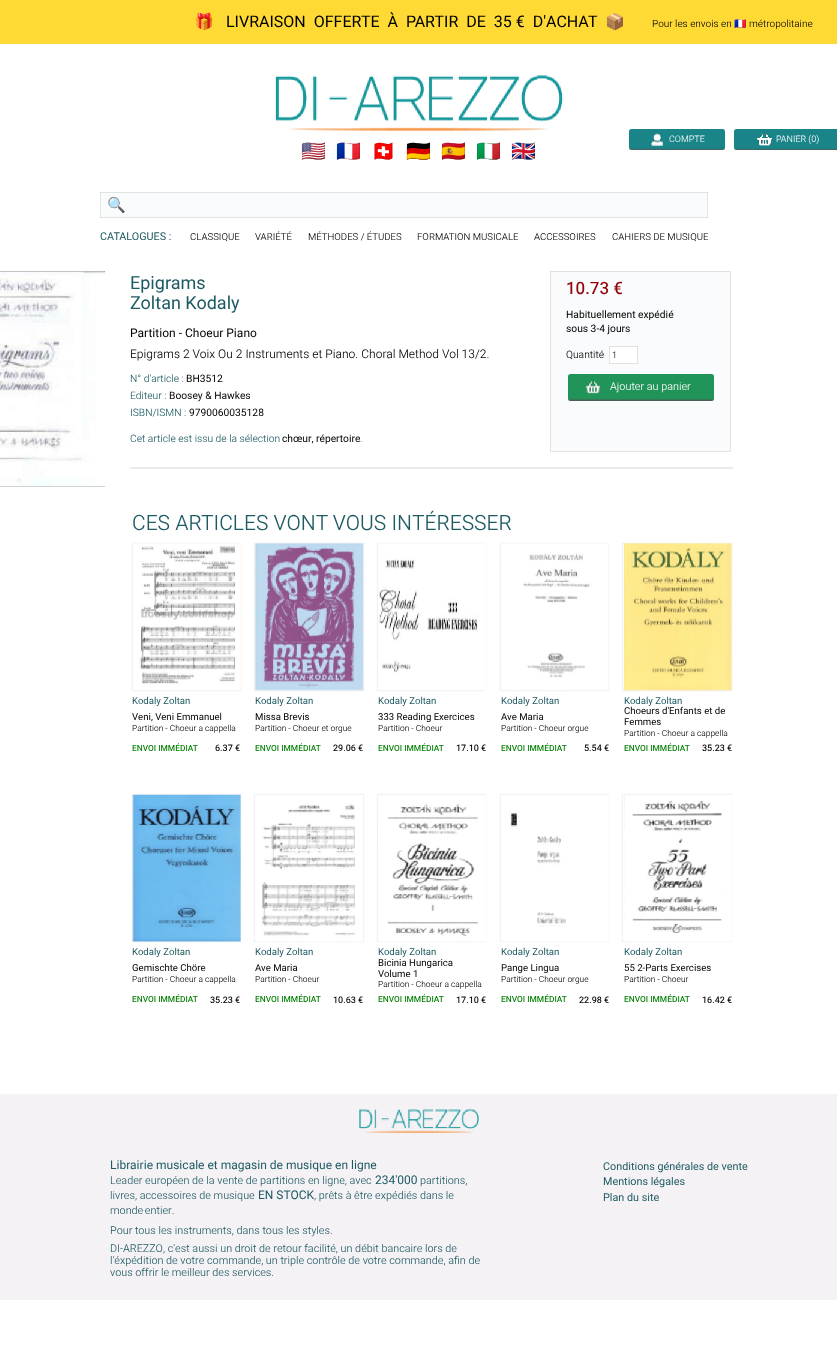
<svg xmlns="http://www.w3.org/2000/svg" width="837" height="1366">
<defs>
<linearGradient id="g1" gradientUnits="userSpaceOnUse" x1="677" y1="129" x2="677" y2="150"><stop offset="0.92" stop-color="#198589"/><stop offset="1" stop-color="#555"/></linearGradient>
<linearGradient id="g2" gradientUnits="userSpaceOnUse" x1="788" y1="129" x2="788" y2="150"><stop offset="0.92" stop-color="#198589"/><stop offset="1" stop-color="#555"/></linearGradient>
<clipPath id="clip1"><rect x="107" y="194" width="600" height="22"/></clipPath>
<linearGradient id="g3" gradientUnits="userSpaceOnUse" x1="641" y1="374" x2="641" y2="401"><stop offset="0.9" stop-color="#219459"/><stop offset="1" stop-color="#555"/></linearGradient>
</defs>
<rect width="100%" height="100%" fill="#fff"/>
<rect width="837" height="44" fill="#ffda35"/>
<text x="194" y="27" style="font-family:Noto Color Emoji;font-size:16px;fill:#000">🎁</text>
<text x="226" y="27" style="font-family:Heebo;font-size:16px;fill:#000" xml:space="preserve">LIVRAISON  OFFERTE  À  PARTIR  DE  35 €  D'ACHAT</text>
<text x="605" y="27" style="font-family:Noto Color Emoji;font-size:16px;fill:#000">📦</text>
<text x="652" y="27" style="font-family:Heebo;font-size:10px;font-weight:300;fill:#000">Pour les envois en</text>
<text x="734" y="27" style="font-family:Noto Color Emoji;font-size:10px;fill:#000">🇫🇷</text>
<text x="749" y="27" style="font-family:Heebo;font-size:10px;font-weight:300;fill:#000">métropolitaine</text>
<image x="274" y="75" width="290" height="56" href="media/1.png"/>
<text x="301" y="158" style="font-family:Noto Color Emoji;font-size:20px;fill:#999">🇺🇲</text>
<text x="336" y="158" style="font-family:Noto Color Emoji;font-size:20px;fill:#999">🇲🇫</text>
<text x="371" y="158" style="font-family:Noto Color Emoji;font-size:20px;fill:#999">🇨🇭</text>
<text x="406" y="158" style="font-family:Noto Color Emoji;font-size:20px;fill:#999">🇩🇪</text>
<text x="441" y="158" style="font-family:Noto Color Emoji;font-size:20px;fill:#999">🇪🇸</text>
<text x="476" y="158" style="font-family:Noto Color Emoji;font-size:20px;fill:#999">🇮🇹</text>
<text x="511" y="158" style="font-family:Noto Color Emoji;font-size:20px;fill:#999">🇬🇧</text>
<rect x="629" y="129" width="96" height="21" rx="2.5" fill="url(#g1)"/>
<image x="651" y="133" width="12" height="13" href="media/2.png"/>
<text x="669" y="142" style="font-family:Heebo;font-size:9px;font-weight:300;fill:#fff">COMPTE</text>
<rect x="734" y="129" width="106" height="21" rx="2.5" fill="url(#g2)"/>
<image x="757" y="134" width="15" height="12" href="media/3.png"/>
<text x="776" y="142" style="font-family:Heebo;font-size:9px;font-weight:300;fill:#fff">PANIER (0)</text>
<rect x="100.3" y="192.3" width="607.4" height="25.4" fill="#fafbfc" stroke="#d1d1d1" stroke-width="0.6"/>
<g clip-path="url(#clip1)">
<text x="107" y="210" style="font-family:Noto Color Emoji;font-size:15px;fill:#757575">🔍</text>
</g>
<text x="100" y="240" style="font-family:Heebo;font-size:10.8px;fill:#1d5a62">CATALOGUES :</text>
<text x="190" y="240" style="font-family:Heebo;font-size:9.6px;font-weight:300;fill:#000">CLASSIQUE</text>
<text x="255" y="240" style="font-family:Heebo;font-size:9.6px;font-weight:300;fill:#000">VARIÉTÉ</text>
<text x="308" y="240" style="font-family:Heebo;font-size:9.6px;font-weight:300;fill:#000">MÉTHODES / ÉTUDES</text>
<text x="417" y="240" style="font-family:Heebo;font-size:9.6px;font-weight:300;fill:#000">FORMATION MUSICALE</text>
<text x="534" y="240" style="font-family:Heebo;font-size:9.6px;font-weight:300;fill:#000">ACCESSOIRES</text>
<text x="612" y="240" style="font-family:Heebo;font-size:9.6px;font-weight:300;fill:#000">CAHIERS DE MUSIQUE</text>
<rect x="-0.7" y="271.3" width="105.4" height="215.4" fill="none" stroke="#888" stroke-width="0.6"/>
<image x="0" y="271" width="106" height="216" href="media/4.png"/>
<text x="130" y="289" style="font-family:Heebo;font-size:18px;fill:#1d5a62">Epigrams</text>
<text x="130" y="309" style="font-family:Heebo;font-size:18px;fill:#1d5a62">Zoltan Kodaly</text>
<text x="130" y="337" style="font-family:Heebo;font-size:12px;fill:#000">Partition - Choeur Piano</text>
<text x="130" y="358" style="font-family:Heebo;font-size:12px;font-weight:300;fill:#000">Epigrams 2 Voix Ou 2 Instruments et Piano. Choral Method Vol 13/2.</text>
<text x="130" y="382" style="font-family:Heebo;font-size:10.25px;font-weight:300;fill:#1d5a62">N° d'article :</text>
<text x="186" y="382" style="font-family:Heebo;font-size:10.25px;fill:#000">BH3512</text>
<text x="130" y="399" style="font-family:Heebo;font-size:10.25px;font-weight:300;fill:#1d5a62">Editeur :</text>
<text x="169" y="399" style="font-family:Heebo;font-size:10.25px;fill:#000">Boosey &amp; Hawkes</text>
<text x="130" y="416" style="font-family:Heebo;font-size:10.25px;font-weight:300;fill:#1d5a62">ISBN/ISMN :</text>
<text x="189" y="416" style="font-family:Heebo;font-size:10.25px;fill:#000">9790060035128</text>
<text x="130" y="442" style="font-family:Heebo;font-size:10.25px;font-weight:300;fill:#1d5a62">Cet article est issu de la sélection</text>
<text x="282" y="442" style="font-family:Heebo;font-size:10.25px;fill:#000">chœur, répertoire</text>
<text x="360" y="442" style="font-family:Heebo;font-size:10.25px;font-weight:300;fill:#1d5a62">.</text>
<rect x="550.3" y="271.3" width="180.4" height="180.4" fill="#fafbfc" stroke="#d1d1d1" stroke-width="0.6"/>
<text x="566" y="294" style="font-family:Heebo;font-size:17px;font-weight:500;fill:#900309">10.73 €</text>
<text x="566" y="318" style="font-family:Heebo;font-size:10.25px;fill:#000">Habituellement expédié</text>
<text x="566" y="332" style="font-family:Heebo;font-size:10.25px;fill:#000">sous 3-4 jours</text>
<text x="566" y="358" style="font-family:Heebo;font-size:10.25px;font-weight:300;fill:#000">Quantité</text>
<rect x="609.3" y="346.3" width="28.4" height="17.4" fill="#fff" stroke="#d1d1d1" stroke-width="0.6"/>
<text x="612" y="358" style="font-family:Heebo;font-size:9px;font-weight:300;fill:#000">1</text>
<rect x="568" y="374" width="146" height="27" rx="2.5" fill="url(#g3)"/>
<image x="585" y="381" width="16" height="13" href="media/5.png"/>
<text x="610" y="390" style="font-family:Heebo;font-size:10.8px;font-weight:300;fill:#fff">Ajouter au panier</text>
<image x="130" y="467" width="604" height="2" href="media/6.png"/>
<text x="132" y="530" style="font-family:Heebo;font-size:21px;font-weight:300;fill:#1d5a62">CES ARTICLES VONT VOUS INTÉRESSER</text>
<rect x="132.3" y="543.3" width="108.4" height="147.4" rx="0.7" fill="none" stroke="#e2e2e2" stroke-width="0.6"/>
<image x="133" y="543" width="108" height="148" href="media/7.png"/>
<rect x="254.3" y="543.3" width="109.4" height="147.4" rx="0.7" fill="none" stroke="#e2e2e2" stroke-width="0.6"/>
<image x="255" y="543" width="109" height="148" href="media/8.png"/>
<rect x="377.3" y="543.3" width="108.4" height="147.4" rx="0.7" fill="none" stroke="#e2e2e2" stroke-width="0.6"/>
<image x="378" y="543" width="108" height="148" href="media/9.png"/>
<rect x="500.3" y="543.3" width="108.4" height="147.4" rx="0.7" fill="none" stroke="#e2e2e2" stroke-width="0.6"/>
<image x="501" y="543" width="108" height="148" href="media/10.png"/>
<rect x="622.3" y="543.3" width="109.4" height="147.4" rx="0.7" fill="none" stroke="#e2e2e2" stroke-width="0.6"/>
<image x="623" y="543" width="109" height="148" href="media/11.png"/>
<text x="132" y="704" style="font-family:Heebo;font-size:9.6px;fill:#1d5a62">Kodaly Zoltan</text>
<text x="255" y="704" style="font-family:Heebo;font-size:9.6px;fill:#1d5a62">Kodaly Zoltan</text>
<text x="378" y="704" style="font-family:Heebo;font-size:9.6px;fill:#1d5a62">Kodaly Zoltan</text>
<text x="501" y="704" style="font-family:Heebo;font-size:9.6px;fill:#1d5a62">Kodaly Zoltan</text>
<text x="624" y="704" style="font-family:Heebo;font-size:9.6px;fill:#1d5a62">Kodaly Zoltan</text>
<text x="132" y="720" style="font-family:Heebo;font-size:9.6px;fill:#000">Veni, Veni Emmanuel</text>
<text x="132" y="731" style="font-family:Heebo;font-size:8.4px;font-weight:300;fill:#000">Partition - Choeur a cappella</text>
<text x="255" y="720" style="font-family:Heebo;font-size:9.6px;fill:#000">Missa Brevis</text>
<text x="255" y="731" style="font-family:Heebo;font-size:8.4px;font-weight:300;fill:#000">Partition - Choeur et orgue</text>
<text x="378" y="720" style="font-family:Heebo;font-size:9.6px;fill:#000">333 Reading Exercices</text>
<text x="378" y="731" style="font-family:Heebo;font-size:8.4px;font-weight:300;fill:#000">Partition - Choeur</text>
<text x="501" y="720" style="font-family:Heebo;font-size:9.6px;fill:#000">Ave Maria</text>
<text x="501" y="731" style="font-family:Heebo;font-size:8.4px;font-weight:300;fill:#000">Partition - Choeur orgue</text>
<text x="624" y="714" style="font-family:Heebo;font-size:9.6px;fill:#000">Choeurs d'Enfants et de</text>
<text x="624" y="725" style="font-family:Heebo;font-size:9.6px;fill:#000">Femmes</text>
<text x="624" y="736" style="font-family:Heebo;font-size:8.4px;font-weight:300;fill:#000">Partition - Choeur a cappella</text>
<text x="132" y="751" style="font-family:Heebo;font-size:8.4px;font-weight:500;fill:#008000">ENVOI IMMÉDIAT</text>
<text x="215" y="751" style="font-family:Heebo;font-size:9px;font-weight:500;fill:#000">6.37 €</text>
<text x="255" y="751" style="font-family:Heebo;font-size:8.4px;font-weight:500;fill:#008000">ENVOI IMMÉDIAT</text>
<text x="333" y="751" style="font-family:Heebo;font-size:9px;font-weight:500;fill:#000">29.06 €</text>
<text x="378" y="751" style="font-family:Heebo;font-size:8.4px;font-weight:500;fill:#008000">ENVOI IMMÉDIAT</text>
<text x="456" y="751" style="font-family:Heebo;font-size:9px;font-weight:500;fill:#000">17.10 €</text>
<text x="501" y="751" style="font-family:Heebo;font-size:8.4px;font-weight:500;fill:#008000">ENVOI IMMÉDIAT</text>
<text x="584" y="751" style="font-family:Heebo;font-size:9px;font-weight:500;fill:#000">5.54 €</text>
<text x="624" y="751" style="font-family:Heebo;font-size:8.4px;font-weight:500;fill:#008000">ENVOI IMMÉDIAT</text>
<text x="702" y="751" style="font-family:Heebo;font-size:9px;font-weight:500;fill:#000">35.23 €</text>
<rect x="132.3" y="794.3" width="108.4" height="147.4" rx="0.7" fill="none" stroke="#e2e2e2" stroke-width="0.6"/>
<image x="132" y="794" width="109" height="148" href="media/12.png"/>
<rect x="254.3" y="794.3" width="109.4" height="147.4" rx="0.7" fill="none" stroke="#e2e2e2" stroke-width="0.6"/>
<image x="256" y="795" width="108" height="147" href="media/13.png"/>
<rect x="377.3" y="794.3" width="108.4" height="147.4" rx="0.7" fill="none" stroke="#e2e2e2" stroke-width="0.6"/>
<image x="379" y="795" width="107" height="147" href="media/14.png"/>
<rect x="500.3" y="794.3" width="108.4" height="147.4" rx="0.7" fill="none" stroke="#e2e2e2" stroke-width="0.6"/>
<image x="501" y="795" width="108" height="147" href="media/15.png"/>
<rect x="622.3" y="794.3" width="109.4" height="147.4" rx="0.7" fill="none" stroke="#e2e2e2" stroke-width="0.6"/>
<image x="624" y="795" width="108" height="147" href="media/16.png"/>
<text x="132" y="955" style="font-family:Heebo;font-size:9.6px;fill:#1d5a62">Kodaly Zoltan</text>
<text x="255" y="955" style="font-family:Heebo;font-size:9.6px;fill:#1d5a62">Kodaly Zoltan</text>
<text x="378" y="955" style="font-family:Heebo;font-size:9.6px;fill:#1d5a62">Kodaly Zoltan</text>
<text x="501" y="955" style="font-family:Heebo;font-size:9.6px;fill:#1d5a62">Kodaly Zoltan</text>
<text x="624" y="955" style="font-family:Heebo;font-size:9.6px;fill:#1d5a62">Kodaly Zoltan</text>
<text x="132" y="971" style="font-family:Heebo;font-size:9.6px;fill:#000">Gemischte Chöre</text>
<text x="132" y="982" style="font-family:Heebo;font-size:8.4px;font-weight:300;fill:#000">Partition - Choeur a cappella</text>
<text x="255" y="971" style="font-family:Heebo;font-size:9.6px;fill:#000">Ave Maria</text>
<text x="255" y="982" style="font-family:Heebo;font-size:8.4px;font-weight:300;fill:#000">Partition - Choeur</text>
<text x="378" y="966" style="font-family:Heebo;font-size:9.6px;fill:#000">Bicinia Hungarica</text>
<text x="378" y="977" style="font-family:Heebo;font-size:9.6px;fill:#000">Volume 1</text>
<text x="378" y="987" style="font-family:Heebo;font-size:8.4px;font-weight:300;fill:#000">Partition - Choeur a cappella</text>
<text x="501" y="971" style="font-family:Heebo;font-size:9.6px;fill:#000">Pange Lingua</text>
<text x="501" y="982" style="font-family:Heebo;font-size:8.4px;font-weight:300;fill:#000">Partition - Choeur orgue</text>
<text x="624" y="971" style="font-family:Heebo;font-size:9.6px;fill:#000">55 2-Parts Exercises</text>
<text x="624" y="982" style="font-family:Heebo;font-size:8.4px;font-weight:300;fill:#000">Partition - Choeur</text>
<text x="132" y="1002" style="font-family:Heebo;font-size:8.4px;font-weight:500;fill:#008000">ENVOI IMMÉDIAT</text>
<text x="210" y="1003" style="font-family:Heebo;font-size:9px;font-weight:500;fill:#000">35.23 €</text>
<text x="255" y="1002" style="font-family:Heebo;font-size:8.4px;font-weight:500;fill:#008000">ENVOI IMMÉDIAT</text>
<text x="333" y="1003" style="font-family:Heebo;font-size:9px;font-weight:500;fill:#000">10.63 €</text>
<text x="378" y="1002" style="font-family:Heebo;font-size:8.4px;font-weight:500;fill:#008000">ENVOI IMMÉDIAT</text>
<text x="456" y="1003" style="font-family:Heebo;font-size:9px;font-weight:500;fill:#000">17.10 €</text>
<text x="501" y="1002" style="font-family:Heebo;font-size:8.4px;font-weight:500;fill:#008000">ENVOI IMMÉDIAT</text>
<text x="579" y="1003" style="font-family:Heebo;font-size:9px;font-weight:500;fill:#000">22.98 €</text>
<text x="624" y="1002" style="font-family:Heebo;font-size:8.4px;font-weight:500;fill:#008000">ENVOI IMMÉDIAT</text>
<text x="702" y="1003" style="font-family:Heebo;font-size:9px;font-weight:500;fill:#000">16.42 €</text>
<rect y="1094" width="837" height="206" fill="#f5f2f5"/>
<image x="359" y="1109" width="120" height="24" href="media/17.png"/>
<text x="110" y="1169" style="font-family:Heebo;font-size:12px;fill:#1d5a62">Librairie musicale et magasin de musique en ligne</text>
<text x="110" y="1184" style="font-family:Heebo;font-size:10.8px;font-weight:300;fill:#1d5a62">Leader européen de la vente de partitions en ligne, avec</text>
<text x="375" y="1184" style="font-family:Heebo;font-size:12px;fill:#1d5a62">234'000</text>
<text x="420" y="1184" style="font-family:Heebo;font-size:10.8px;font-weight:300;fill:#1d5a62">partitions,</text>
<text x="110" y="1199" style="font-family:Heebo;font-size:10.8px;font-weight:300;fill:#1d5a62">livres, accessoires de musique</text>
<text x="258" y="1199" style="font-family:Heebo;font-size:12px;fill:#1d5a62">EN STOCK</text>
<text x="314" y="1199" style="font-family:Heebo;font-size:10.8px;font-weight:300;fill:#1d5a62">, prêts à être expédiés dans le</text>
<text x="110" y="1214" word-spacing="-1" style="font-family:Heebo;font-size:10.8px;font-weight:300;fill:#1d5a62">monde entier.</text>
<text x="110" y="1234" style="font-family:Heebo;font-size:10.8px;font-weight:300;fill:#1d5a62">Pour tous les instruments, dans tous les styles.</text>
<text x="110" y="1252" style="font-family:Heebo;font-size:10.8px;font-weight:300;fill:#1d5a62">DI-AREZZO, c'est aussi un droit de retour facilité, un débit bancaire lors de</text>
<text x="110" y="1264" style="font-family:Heebo;font-size:10.8px;font-weight:300;fill:#1d5a62">l'éxpédition de votre commande, un triple contrôle de votre commande, afin de</text>
<text x="110" y="1276" style="font-family:Heebo;font-size:10.8px;font-weight:300;fill:#1d5a62">vous offrir le meilleur des services.</text>
<text x="603" y="1170" style="font-family:Heebo;font-size:10.8px;fill:#1d5a62">Conditions générales de vente</text>
<text x="603" y="1185" style="font-family:Heebo;font-size:10.8px;fill:#1d5a62">Mentions légales</text>
<text x="603" y="1201" style="font-family:Heebo;font-size:10.8px;fill:#1d5a62">Plan du site</text>
</svg>
